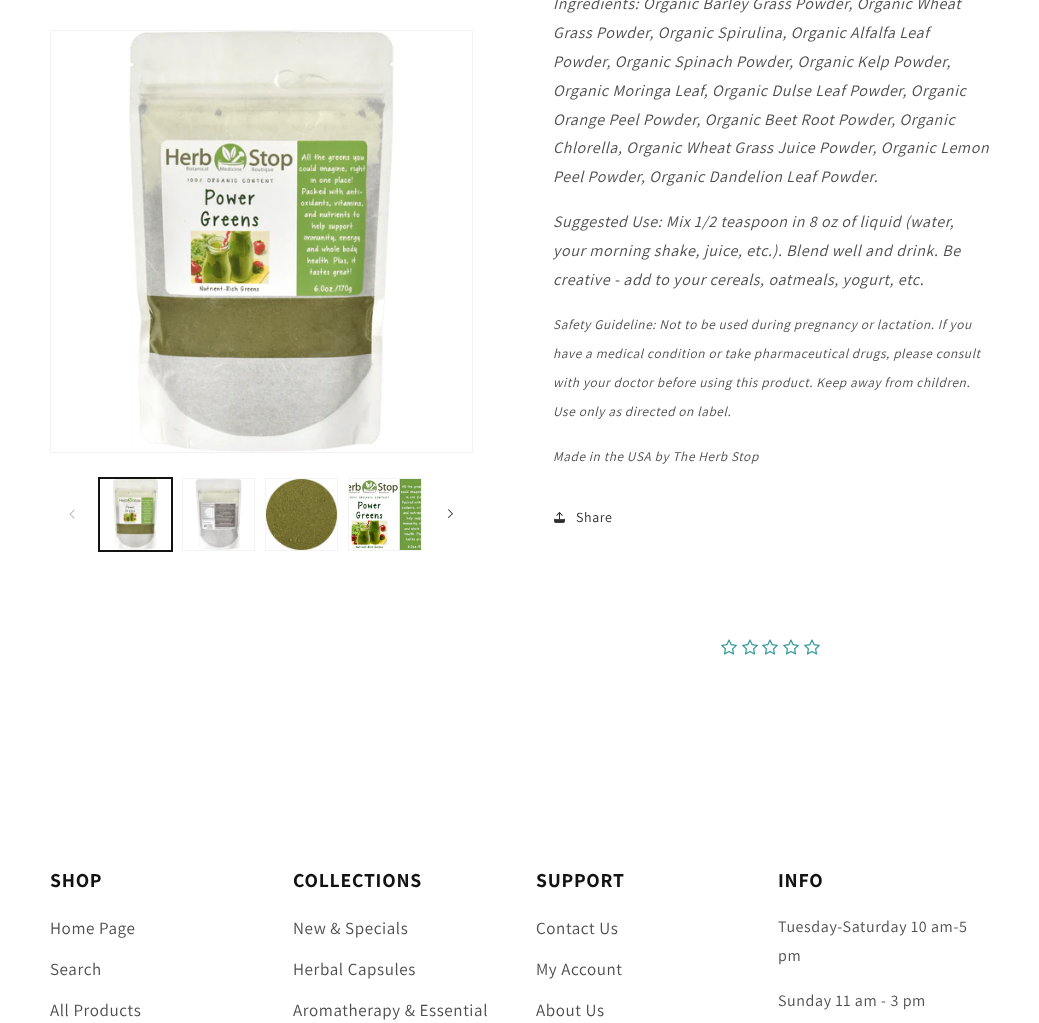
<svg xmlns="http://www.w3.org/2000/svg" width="1039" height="1023">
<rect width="100%" height="100%" fill="#fff"/>
<rect x="50.5" y="30.5" width="422" height="422" fill="none" stroke="#f3f3f3"/>
<image x="129" y="31" width="267" height="421" href="media/1.png"/>
<image x="69" y="509" width="6" height="10" href="media/2.png"/>
<rect x="98.5" y="477.5" width="74" height="74" fill="none" stroke="#121212"/>
<rect x="99.5" y="478.5" width="72" height="72" fill="none" stroke="#121212"/>
<image x="113" y="479" width="45" height="71" href="media/3.png"/>
<rect x="182.5" y="478.5" width="72" height="72" fill="none" stroke="#f3f3f3"/>
<image x="195" y="479" width="47" height="71" href="media/4.png"/>
<rect x="265.5" y="478.5" width="72" height="72" fill="none" stroke="#f3f3f3"/>
<image x="266" y="479" width="71" height="71" href="media/5.png"/>
<rect x="348.5" y="478.5" width="73" height="72" fill="none" stroke="#f3f3f3"/>
<image x="349" y="479" width="72" height="71" href="media/6.png"/>
<image x="448" y="509" width="5" height="10" href="media/7.png"/>
<text x="553" y="9" style="font-family:Assistant;font-size:16px;font-style:italic;letter-spacing:0.6px;fill:#4d4d4d">Ingredients: Organic Barley Grass Powder, Organic Wheat</text>
<text x="553" y="38" style="font-family:Assistant;font-size:16px;font-style:italic;letter-spacing:0.6px;fill:#4d4d4d">Grass Powder, Organic Spirulina, Organic Alfalfa Leaf</text>
<text x="553" y="67" style="font-family:Assistant;font-size:16px;font-style:italic;letter-spacing:0.6px;fill:#4d4d4d">Powder, Organic Spinach Powder, Organic Kelp Powder,</text>
<text x="553" y="96" style="font-family:Assistant;font-size:16px;font-style:italic;letter-spacing:0.6px;fill:#4d4d4d">Organic Moringa Leaf, Organic Dulse Leaf Powder, Organic</text>
<text x="553" y="125" style="font-family:Assistant;font-size:16px;font-style:italic;letter-spacing:0.6px;fill:#4d4d4d">Orange Peel Powder, Organic Beet Root Powder, Organic</text>
<text x="553" y="153" style="font-family:Assistant;font-size:16px;font-style:italic;letter-spacing:0.6px;fill:#4d4d4d">Chlorella, Organic Wheat Grass Juice Powder, Organic Lemon</text>
<text x="553" y="182" style="font-family:Assistant;font-size:16px;font-style:italic;letter-spacing:0.6px;fill:#4d4d4d">Peel Powder, Organic Dandelion Leaf Powder.</text>
<text x="553" y="227" style="font-family:Assistant;font-size:16px;font-style:italic;letter-spacing:0.6px;fill:#4d4d4d">Suggested Use: Mix 1/2 teaspoon in 8 oz of liquid (water,</text>
<text x="553" y="256" style="font-family:Assistant;font-size:16px;font-style:italic;letter-spacing:0.6px;fill:#4d4d4d">your morning shake, juice, etc.). Blend well and drink. Be</text>
<text x="553" y="285" style="font-family:Assistant;font-size:16px;font-style:italic;letter-spacing:0.6px;fill:#4d4d4d">creative - add to your cereals, oatmeals, yogurt, etc.</text>
<text x="553" y="329" style="font-family:Assistant;font-size:13.3px;font-style:italic;letter-spacing:0.6px;fill:#4d4d4d">Safety Guideline: Not to be used during pregnancy or lactation. If you</text>
<text x="553" y="358" style="font-family:Assistant;font-size:13.3px;font-style:italic;letter-spacing:0.6px;fill:#4d4d4d">have a medical condition or take pharmaceutical drugs, please consult</text>
<text x="553" y="387" style="font-family:Assistant;font-size:13.3px;font-style:italic;letter-spacing:0.6px;fill:#4d4d4d">with your doctor before using this product. Keep away from children.</text>
<text x="553" y="416" style="font-family:Assistant;font-size:13.3px;font-style:italic;letter-spacing:0.6px;fill:#4d4d4d">Use only as directed on label.</text>
<text x="553" y="461" style="font-family:Assistant;font-size:13.3px;font-style:italic;letter-spacing:0.6px;fill:#4d4d4d">Made in the USA by The Herb Stop</text>
<image x="554" y="512" width="11" height="11" href="media/8.png"/>
<text x="576" y="522" style="font-family:Assistant;font-size:14px;letter-spacing:0.6px;fill:#2e2e2e">Share</text>
<image x="721" y="639" width="16" height="16" href="media/9.png"/>
<image x="742" y="639" width="16" height="16" href="media/9.png"/>
<image x="762" y="639" width="16" height="16" href="media/9.png"/>
<image x="783" y="639" width="16" height="16" href="media/9.png"/>
<image x="804" y="639" width="16" height="16" href="media/9.png"/>
<text x="50" y="887" style="font-family:Assistant;font-size:19.75px;font-weight:bold;letter-spacing:0.75px;fill:#121212">SHOP</text>
<text x="50" y="934" style="font-family:Assistant;font-size:17px;letter-spacing:0.6px;fill:#4d4d4d">Home Page</text>
<text x="50" y="975" style="font-family:Assistant;font-size:17px;letter-spacing:0.6px;fill:#4d4d4d">Search</text>
<text x="50" y="1016" style="font-family:Assistant;font-size:17px;letter-spacing:0.6px;fill:#4d4d4d">All Products</text>
<text x="293" y="887" style="font-family:Assistant;font-size:19.75px;font-weight:bold;letter-spacing:0.75px;fill:#121212">COLLECTIONS</text>
<text x="293" y="934" style="font-family:Assistant;font-size:17px;letter-spacing:0.6px;fill:#4d4d4d">New &amp; Specials</text>
<text x="293" y="975" style="font-family:Assistant;font-size:17px;letter-spacing:0.6px;fill:#4d4d4d">Herbal Capsules</text>
<text x="293" y="1016" style="font-family:Assistant;font-size:17px;letter-spacing:0.6px;fill:#4d4d4d">Aromatherapy &amp; Essential</text>
<text x="536" y="887" style="font-family:Assistant;font-size:19.75px;font-weight:bold;letter-spacing:0.75px;fill:#121212">SUPPORT</text>
<text x="536" y="934" style="font-family:Assistant;font-size:17px;letter-spacing:0.6px;fill:#4d4d4d">Contact Us</text>
<text x="536" y="975" style="font-family:Assistant;font-size:17px;letter-spacing:0.6px;fill:#4d4d4d">My Account</text>
<text x="536" y="1016" style="font-family:Assistant;font-size:17px;letter-spacing:0.6px;fill:#4d4d4d">About Us</text>
<text x="778" y="887" style="font-family:Assistant;font-size:19.75px;font-weight:bold;letter-spacing:0.75px;fill:#121212">INFO</text>
<text x="778" y="932" style="font-family:Assistant;font-size:16px;letter-spacing:0.6px;fill:#4d4d4d">Tuesday-Saturday 10 am-5</text>
<text x="778" y="961" style="font-family:Assistant;font-size:16px;letter-spacing:0.6px;fill:#4d4d4d">pm</text>
<text x="778" y="1006" style="font-family:Assistant;font-size:16px;letter-spacing:0.6px;fill:#4d4d4d">Sunday 11 am - 3 pm</text>
</svg>
